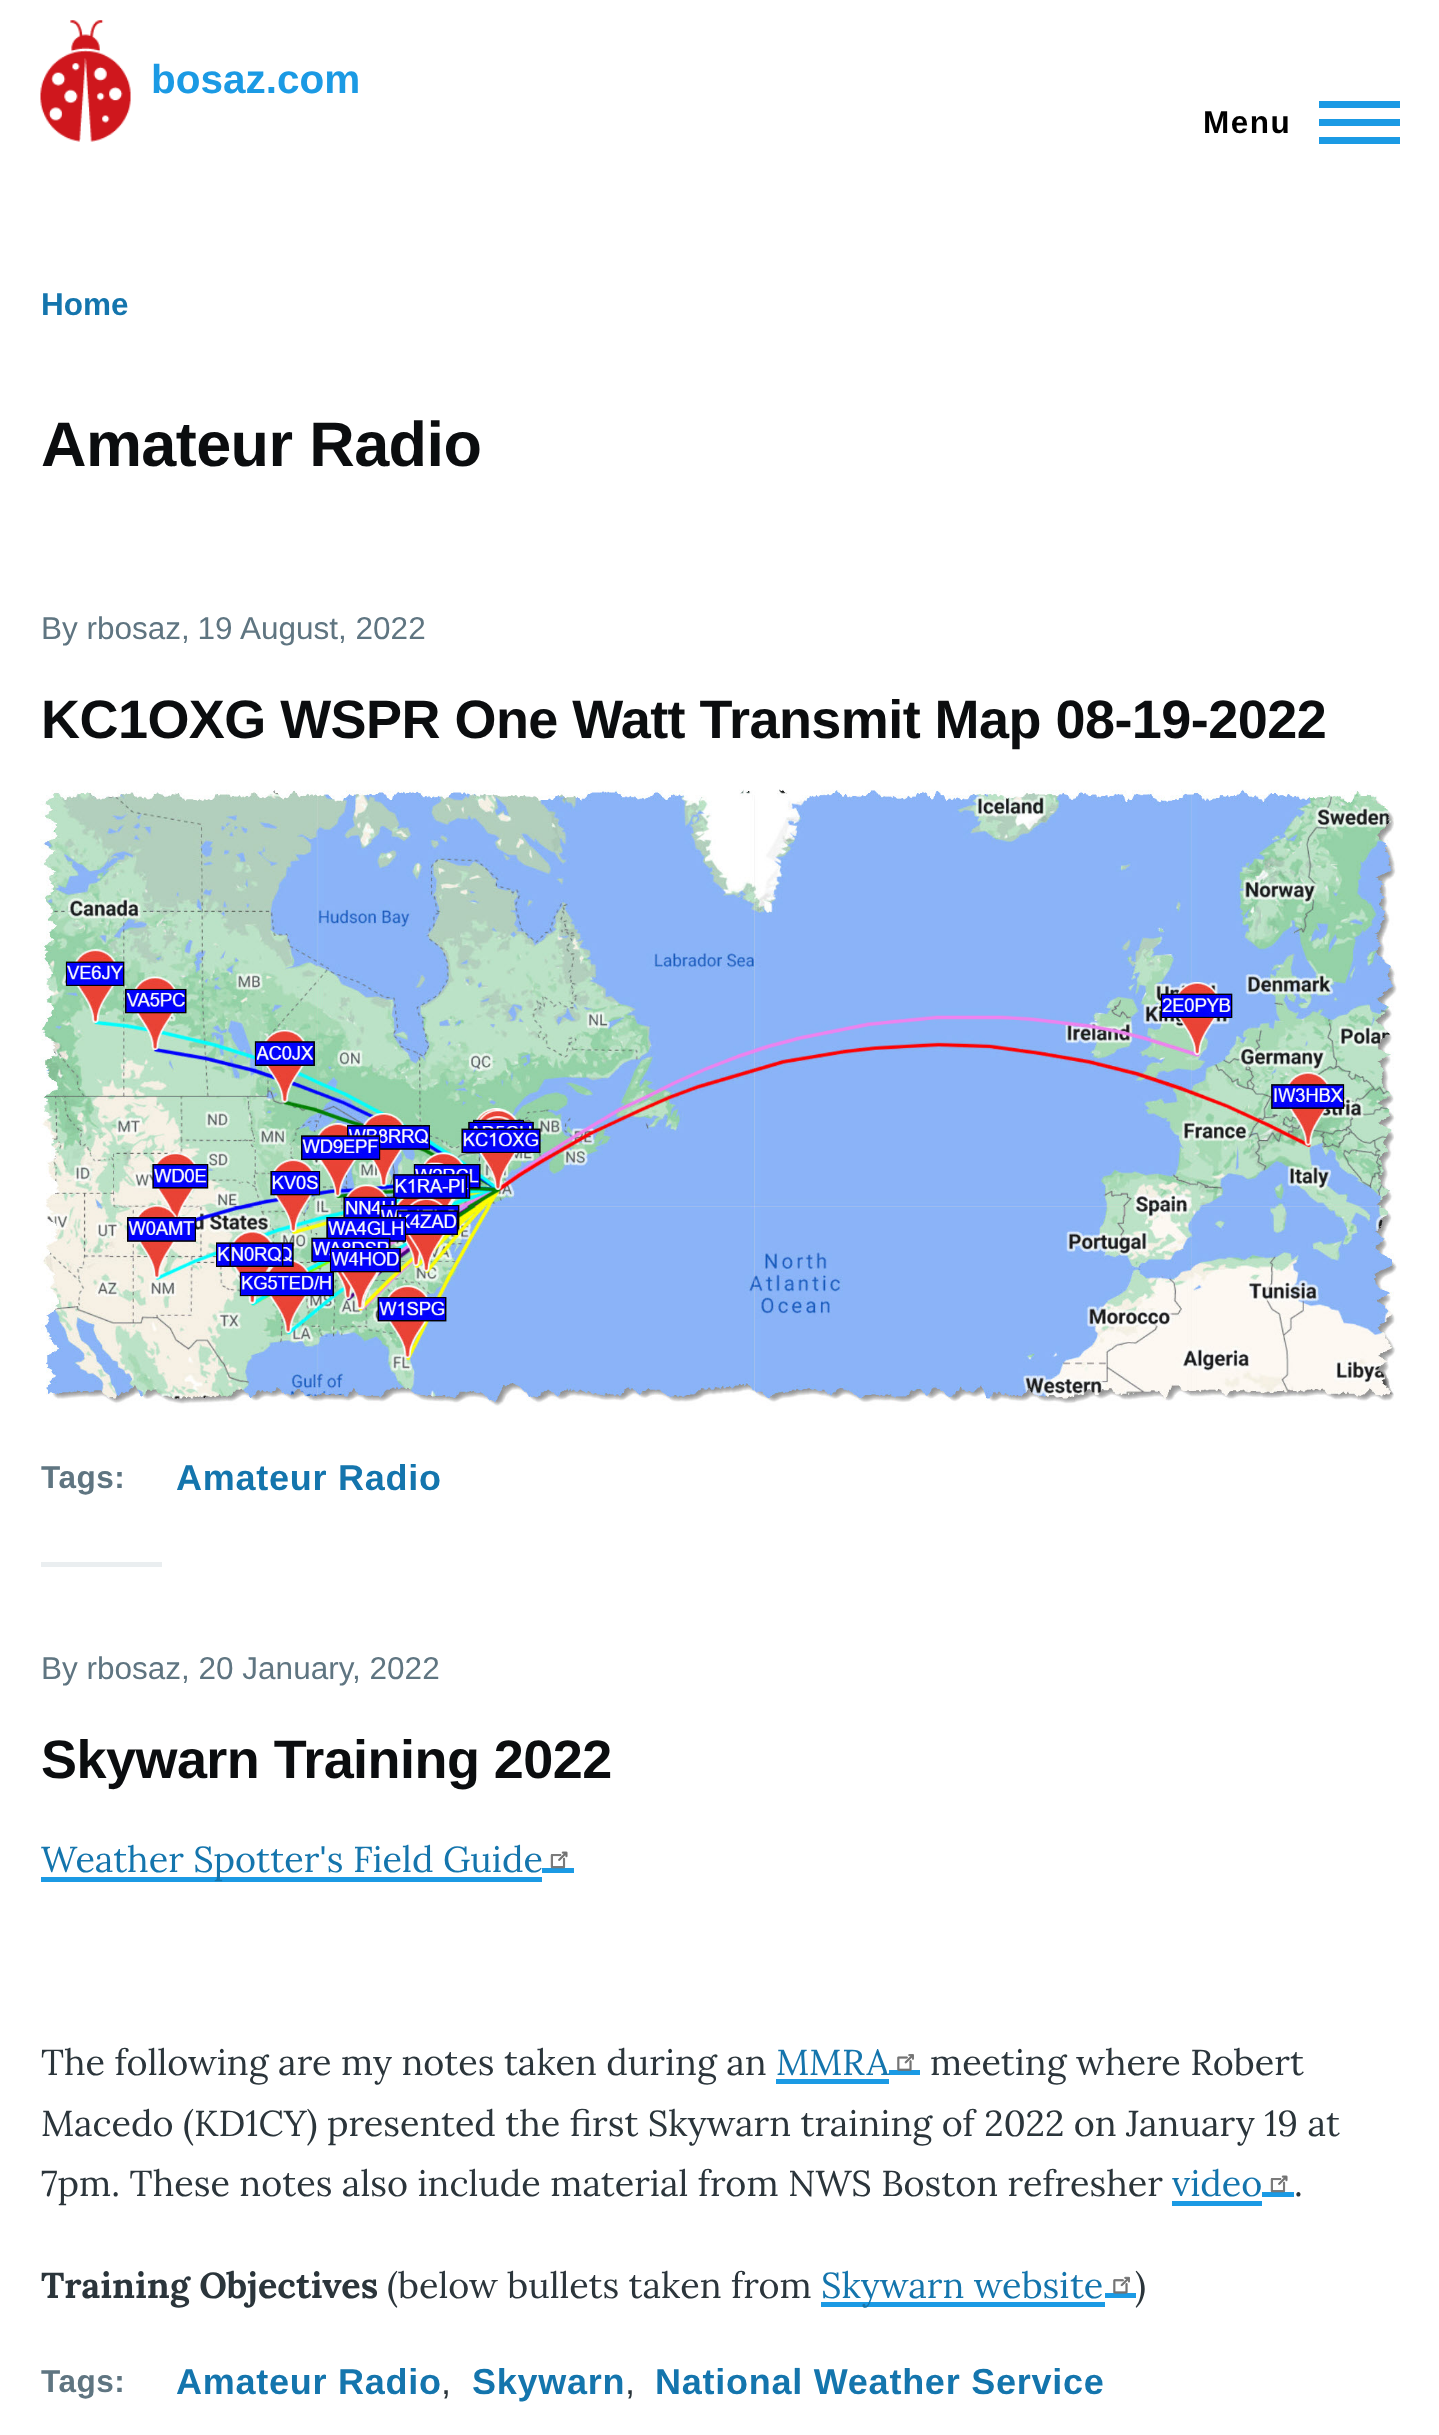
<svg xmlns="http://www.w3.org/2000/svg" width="1439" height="2435">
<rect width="100%" height="100%" fill="#fff"/>
<image x="40" y="20" width="91" height="122" href="media/1.png"/>
<text x="151" y="93" style="font-family:Liberation Sans;font-size:40.5px;font-weight:bold;fill:#1b9ae4">bosaz.com</text>
<text x="1203" y="133" style="font-family:Liberation Sans;font-size:31.5px;font-weight:bold;letter-spacing:1.5px;fill:#000">Menu</text>
<rect x="1319" y="119" width="81" height="7" fill="#1b9ae4"/>
<rect x="1319" y="101" width="81" height="7" fill="#1b9ae4"/>
<rect x="1319" y="137" width="81" height="7" fill="#1b9ae4"/>
<text x="41" y="315" style="font-family:Liberation Sans;font-size:31.5px;font-weight:bold;fill:#1475ad">Home</text>
<text x="41" y="466" style="font-family:Liberation Sans;font-size:63px;font-weight:bold;letter-spacing:-0.6px;fill:#0b0d0f">Amateur Radio</text>
<text x="41" y="639" style="font-family:Liberation Sans;font-size:31.5px;fill:#5f7581">By rbosaz</text>
<text x="181" y="639" word-spacing="-1" style="font-family:Liberation Sans;font-size:31.5px;fill:#5f7581">, 19</text>
<text x="240" y="639" style="font-family:Liberation Sans;font-size:31.5px;fill:#5f7581">August, 2022</text>
<text x="41" y="738" style="font-family:Liberation Sans;font-size:54px;font-weight:bold;letter-spacing:-0.55px;fill:#0b0d0f">KC1OXG WSPR One Watt Transmit Map 08-19-2022</text>
<image x="40" y="789" width="1357" height="617" href="media/2.png"/>
<text x="41" y="1488" style="font-family:Liberation Sans;font-size:31.5px;font-weight:bold;letter-spacing:0.5px;fill:#5f7581">Tags:</text>
<text x="176" y="1490" style="font-family:Liberation Sans;font-size:36px;font-weight:bold;letter-spacing:0.75px;fill:#1475ad">Amateur Radio</text>
<rect x="41" y="1562" width="121" height="5" fill="#eaeef0"/>
<text x="41" y="1679" style="font-family:Liberation Sans;font-size:31.5px;fill:#5f7581">By rbosaz, 20 January, 2022</text>
<text x="41" y="1778" style="font-family:Liberation Sans;font-size:54px;font-weight:bold;letter-spacing:-0.55px;fill:#0b0d0f">Skywarn Training 2022</text>
<rect x="41" y="1877" width="501" height="5" fill="#1b9ae4"/>
<text x="41" y="1872" style="font-family:Lora;font-size:36px;fill:#1475ad">Weather Spotter's Field Guide</text>
<rect x="542" y="1868" width="32" height="5" fill="#1b9ae4"/>
<image x="550" y="1851" width="18" height="18" href="media/3.png"/>
<text x="41" y="2075" style="font-family:Lora;font-size:36px;fill:#2b353b">The following are my notes taken during an</text>
<rect x="889" y="2070" width="31" height="5" fill="#1b9ae4"/>
<text x="776" y="2075" style="font-family:Lora;font-size:36px;fill:#1475ad">MMRA</text>
<rect x="776" y="2079" width="113" height="5" fill="#1b9ae4"/>
<image x="897" y="2054" width="17" height="17" href="media/4.png"/>
<text x="930" y="2075" style="font-family:Lora;font-size:36px;fill:#2b353b">meeting where Robert</text>
<text x="41" y="2136" style="font-family:Lora;font-size:36px;fill:#2b353b">Macedo (KD1CY) presented the first Skywarn training of 2022 on January 19 at</text>
<text x="41" y="2196" style="font-family:Lora;font-size:36px;fill:#2b353b">7pm. These notes also include material from NWS Boston refresher</text>
<text x="1172" y="2196" style="font-family:Lora;font-size:36px;fill:#1475ad">video</text>
<rect x="1172" y="2201" width="90" height="5" fill="#1b9ae4"/>
<rect x="1262" y="2192" width="32" height="5" fill="#1b9ae4"/>
<image x="1270" y="2175" width="18" height="18" href="media/3.png"/>
<text x="1294" y="2196" style="font-family:Lora;font-size:36px;fill:#2b353b">.</text>
<text x="41" y="2298" style="font-family:Lora;font-size:36px;font-weight:bold;fill:#2b353b">Training Objectives</text>
<text x="387" y="2298" style="font-family:Lora;font-size:36px;fill:#2b353b">(below bullets taken from</text>
<rect x="821" y="2302" width="284" height="5" fill="#1b9ae4"/>
<text x="821" y="2298" style="font-family:Lora;font-size:36px;fill:#1475ad">Skywarn website</text>
<rect x="1105" y="2293" width="31" height="5" fill="#1b9ae4"/>
<image x="1113" y="2276" width="17" height="18" href="media/5.png"/>
<text x="1135" y="2298" style="font-family:Lora;font-size:36px;fill:#2b353b">)</text>
<text x="41" y="2392" style="font-family:Liberation Sans;font-size:31.5px;font-weight:bold;letter-spacing:0.5px;fill:#5f7581">Tags:</text>
<text x="176" y="2394" style="font-family:Liberation Sans;font-size:36px;font-weight:bold;letter-spacing:0.75px;fill:#1475ad">Amateur Radio</text>
<text x="441" y="2394" style="font-family:Liberation Sans;font-size:36px;fill:#2b353b">,</text>
<text x="472" y="2394" style="font-family:Liberation Sans;font-size:36px;font-weight:bold;letter-spacing:0.75px;fill:#1475ad">Skywarn</text>
<text x="625" y="2394" style="font-family:Liberation Sans;font-size:36px;fill:#2b353b">,</text>
<text x="655" y="2394" style="font-family:Liberation Sans;font-size:36px;font-weight:bold;letter-spacing:0.75px;fill:#1475ad">National Weather Service</text>
</svg>
